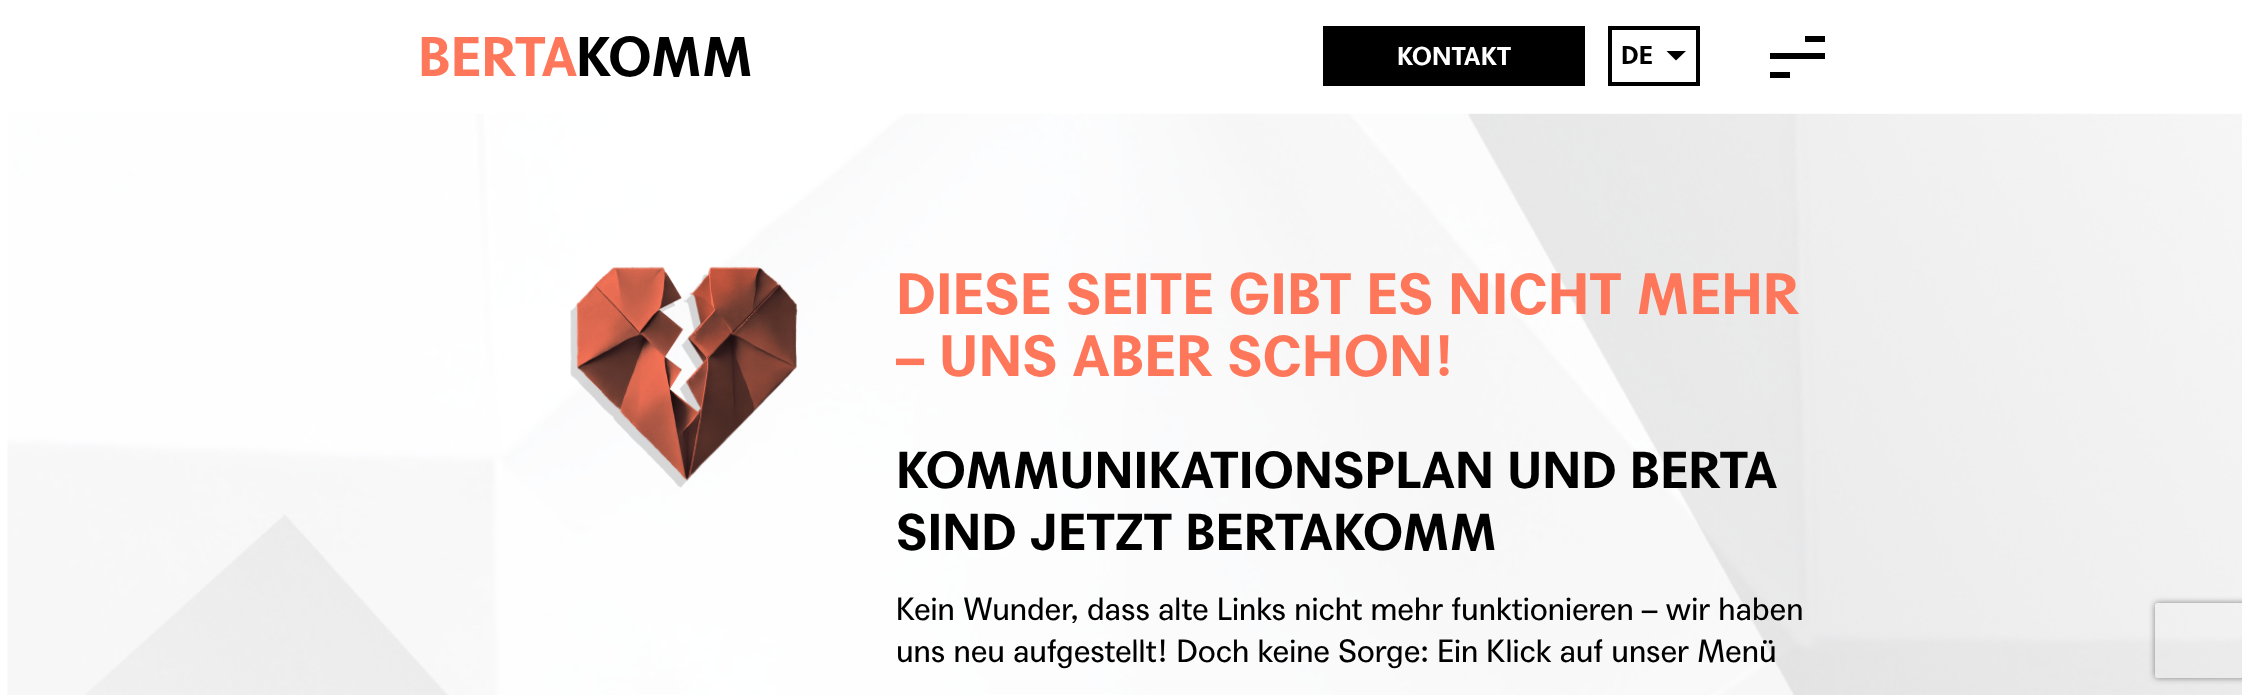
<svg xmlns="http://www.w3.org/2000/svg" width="2242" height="695">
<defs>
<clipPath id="clip1"><path d="M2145 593h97v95h-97zm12.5 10h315c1.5 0 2.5 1 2.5 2.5v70c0 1.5-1 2.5-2.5 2.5h-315c-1.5 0-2.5-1-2.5-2.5v-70c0-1.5 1-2.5 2.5-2.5z" clip-rule="evenodd"/></clipPath>
</defs>
<rect width="100%" height="100%" fill="#fff"/>
<text x="418" y="76" style="font-family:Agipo;font-size:54px;font-weight:bold;fill:#ff775a">BERTA</text>
<text x="576" y="76" style="font-family:Agipo;font-size:54px;font-weight:bold;fill:#000">KOMM</text>
<rect x="1323" y="26" width="262" height="60" fill="#000"/>
<text x="1397" y="65" style="font-family:Agipo;font-size:25px;font-weight:bold;fill:#fff">KONTAKT</text>
<rect x="1610" y="28" width="88" height="56" fill="none" stroke="#000" stroke-width="4"/>
<text x="1621" y="64" style="font-family:Agipo;font-size:25px;font-weight:bold;fill:#000">DE</text>
<path d="M1676 51h10l-10 9.5l-9.5-9.5z" fill="#000"/>
<rect x="1770" y="53" width="55" height="6" fill="#000"/>
<rect x="1770" y="72" width="20" height="6" fill="#000"/>
<rect x="1805" y="36" width="20" height="6" fill="#000"/>
<image x="7" y="113" width="2235" height="582" href="media/1.png"/>
<image x="570" y="266" width="228" height="222" href="media/2.png"/>
<text x="896" y="314" style="font-family:Agipo;font-size:56.25px;font-weight:bold;fill:#ff775a">DIESE SEITE GIBT ES NICHT MEHR</text>
<text x="896" y="376" style="font-family:Agipo;font-size:56.25px;font-weight:bold;fill:#ff775a">– UNS ABER SCHON!</text>
<text x="896" y="488" style="font-family:Agipo;font-size:50px;font-weight:bold;fill:#000">KOMMUNIKATIONSPLAN UND BERTA</text>
<text x="896" y="550" style="font-family:Agipo;font-size:50px;font-weight:bold;fill:#000">SIND JETZT BERTAKOMM</text>
<text x="896" y="620" style="font-family:Agipo;font-size:31.25px;fill:#000">Kein Wunder, dass alte Links nicht mehr funktionieren – wir haben</text>
<text x="896" y="662" style="font-family:Agipo;font-size:31.25px;fill:#000">uns neu aufgestellt! Doch keine Sorge: Ein Klick auf unser Menü</text>
<g clip-path="url(#clip1)">
<rect x="2155" y="603" width="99" height="75" rx="2.5" fill="#808080" filter="blur(3px)"/>
</g>
</svg>
